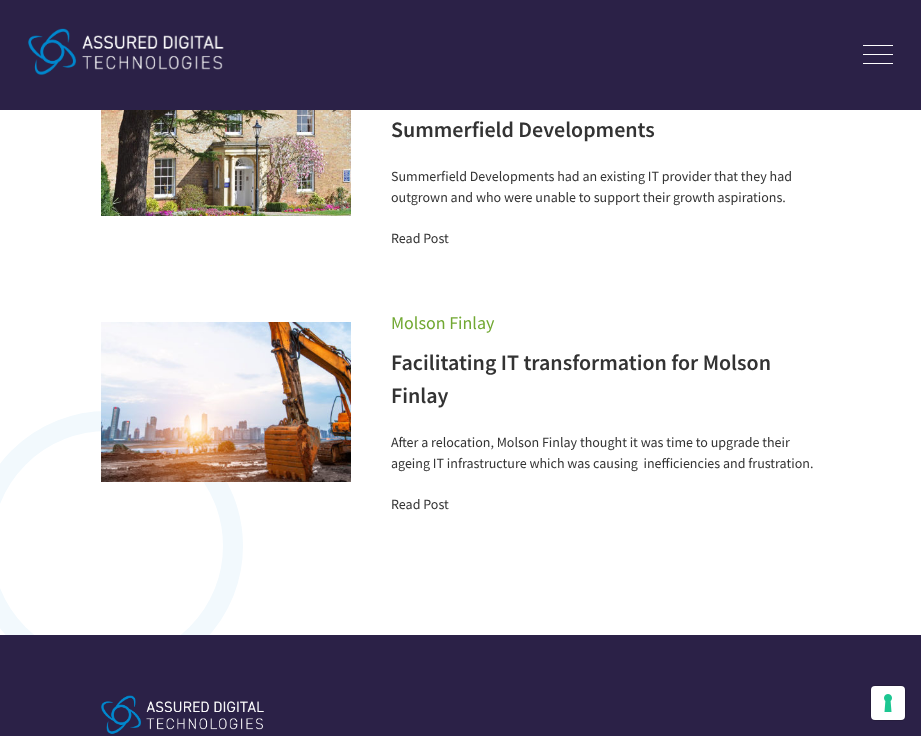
<svg xmlns="http://www.w3.org/2000/svg" width="921" height="736">
<rect width="100%" height="100%" fill="#fff"/>
<rect width="921" height="110" fill="#2b2147"/>
<image x="28" y="28" width="196" height="47" href="media/1.png"/>
<rect x="863" y="45" width="30" height="1" fill="#fff"/>
<rect x="863" y="54" width="30" height="1" fill="#fff"/>
<rect x="863" y="63" width="30" height="1" fill="#fff"/>
<image x="101" y="110" width="250" height="106" href="media/2.png"/>
<text x="391" y="137" style="font-family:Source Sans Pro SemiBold;font-size:22px;font-weight:600;fill:#333">Summerfield Developments</text>
<text x="391" y="181" style="font-family:Source Sans Pro;font-size:14px;fill:#333">Summerfield Developments had an existing IT provider that they had</text>
<text x="391" y="202" style="font-family:Source Sans Pro;font-size:14px;fill:#333">outgrown and who were unable to support their growth aspirations.</text>
<text x="391" y="243" style="font-family:Source Sans Pro;font-size:14px;fill:#333">Read Post</text>
<rect x="-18" y="421" width="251" height="250" rx="125" fill="none" stroke="#f2f9fd" stroke-width="20"/>
<image x="101" y="322" width="250" height="160" href="media/3.png"/>
<text x="391" y="329" style="font-family:Source Sans Pro;font-size:18px;fill:#71a832">Molson Finlay</text>
<text x="391" y="370" style="font-family:Source Sans Pro SemiBold;font-size:22px;font-weight:600;fill:#333">Facilitating IT transformation for Molson</text>
<text x="391" y="403" style="font-family:Source Sans Pro SemiBold;font-size:22px;font-weight:600;fill:#333">Finlay</text>
<text x="391" y="447" style="font-family:Source Sans Pro;font-size:14px;fill:#333">After a relocation, Molson Finlay thought it was time to upgrade their</text>
<text x="391" y="468" style="font-family:Source Sans Pro;font-size:14px;fill:#333" xml:space="preserve">ageing IT infrastructure which was causing  inefficiencies and frustration.</text>
<text x="391" y="509" style="font-family:Source Sans Pro;font-size:14px;fill:#333">Read Post</text>
<rect y="635" width="921" height="101" fill="#2b2147"/>
<image x="101" y="695" width="163" height="39" href="media/4.png"/>
<rect x="870.5" y="685.5" width="35" height="35" rx="4.5" fill="none" stroke="#251c3c"/>
<rect x="871" y="686" width="34" height="34" rx="4" fill="#fff"/>
<image x="884" y="694" width="8" height="18" href="media/5.png"/>
</svg>
